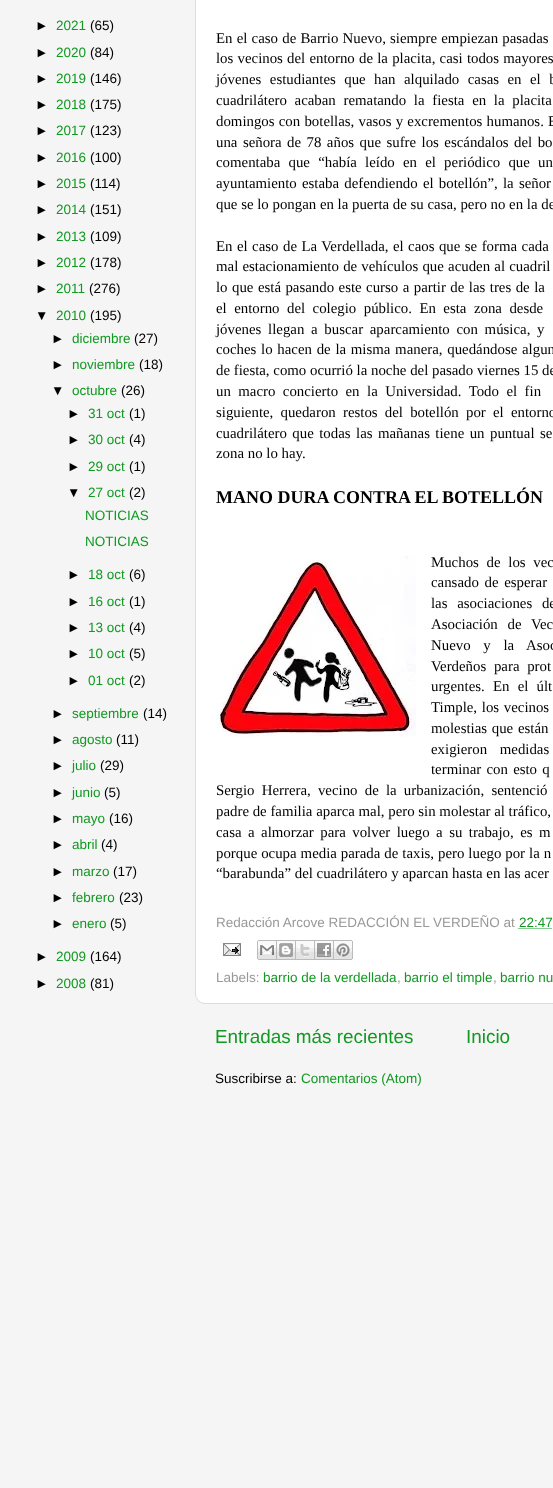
<svg xmlns="http://www.w3.org/2000/svg" width="553" height="1488">
<rect width="100%" height="100%" fill="#f5f5f5"/>
<text x="35" y="30" style="font-family:Liberation Sans;font-size:13.5px;fill:#000">►</text>
<text x="56" y="30" style="font-family:Liberation Sans;font-size:13.5px;fill:#192">2021</text>
<text x="90" y="30" style="font-family:Liberation Sans;font-size:13.5px;fill:#000">(65)</text>
<text x="35" y="57" style="font-family:Liberation Sans;font-size:13.5px;fill:#000">►</text>
<text x="56" y="57" style="font-family:Liberation Sans;font-size:13.5px;fill:#192">2020</text>
<text x="90" y="57" style="font-family:Liberation Sans;font-size:13.5px;fill:#000">(84)</text>
<text x="35" y="83" style="font-family:Liberation Sans;font-size:13.5px;fill:#000">►</text>
<text x="56" y="83" style="font-family:Liberation Sans;font-size:13.5px;fill:#192">2019</text>
<text x="90" y="83" style="font-family:Liberation Sans;font-size:13.5px;fill:#000">(146)</text>
<text x="35" y="109" style="font-family:Liberation Sans;font-size:13.5px;fill:#000">►</text>
<text x="56" y="109" style="font-family:Liberation Sans;font-size:13.5px;fill:#192">2018</text>
<text x="90" y="109" style="font-family:Liberation Sans;font-size:13.5px;fill:#000">(175)</text>
<text x="35" y="135" style="font-family:Liberation Sans;font-size:13.5px;fill:#000">►</text>
<text x="56" y="135" style="font-family:Liberation Sans;font-size:13.5px;fill:#192">2017</text>
<text x="90" y="135" style="font-family:Liberation Sans;font-size:13.5px;fill:#000">(123)</text>
<text x="35" y="162" style="font-family:Liberation Sans;font-size:13.5px;fill:#000">►</text>
<text x="56" y="162" style="font-family:Liberation Sans;font-size:13.5px;fill:#192">2016</text>
<text x="90" y="162" style="font-family:Liberation Sans;font-size:13.5px;fill:#000">(100)</text>
<text x="35" y="188" style="font-family:Liberation Sans;font-size:13.5px;fill:#000">►</text>
<text x="56" y="188" style="font-family:Liberation Sans;font-size:13.5px;fill:#192">2015</text>
<text x="90" y="188" style="font-family:Liberation Sans;font-size:13.5px;fill:#000">(114)</text>
<text x="35" y="214" style="font-family:Liberation Sans;font-size:13.5px;fill:#000">►</text>
<text x="56" y="214" style="font-family:Liberation Sans;font-size:13.5px;fill:#192">2014</text>
<text x="90" y="214" style="font-family:Liberation Sans;font-size:13.5px;fill:#000">(151)</text>
<text x="35" y="241" style="font-family:Liberation Sans;font-size:13.5px;fill:#000">►</text>
<text x="56" y="241" style="font-family:Liberation Sans;font-size:13.5px;fill:#192">2013</text>
<text x="90" y="241" style="font-family:Liberation Sans;font-size:13.5px;fill:#000">(109)</text>
<text x="35" y="267" style="font-family:Liberation Sans;font-size:13.5px;fill:#000">►</text>
<text x="56" y="267" style="font-family:Liberation Sans;font-size:13.5px;fill:#192">2012</text>
<text x="90" y="267" style="font-family:Liberation Sans;font-size:13.5px;fill:#000">(178)</text>
<text x="35" y="293" style="font-family:Liberation Sans;font-size:13.5px;fill:#000">►</text>
<text x="56" y="293" style="font-family:Liberation Sans;font-size:13.5px;fill:#192">2011</text>
<text x="89" y="293" style="font-family:Liberation Sans;font-size:13.5px;fill:#000">(276)</text>
<text x="35" y="320" style="font-family:Liberation Sans;font-size:13.5px;fill:#000">▼</text>
<text x="56" y="320" style="font-family:Liberation Sans;font-size:13.5px;fill:#192">2010</text>
<text x="90" y="320" style="font-family:Liberation Sans;font-size:13.5px;fill:#000">(195)</text>
<text x="51" y="343" style="font-family:Liberation Sans;font-size:13.5px;fill:#000">►</text>
<text x="72" y="343" style="font-family:Liberation Sans;font-size:13.5px;fill:#192">diciembre</text>
<text x="134" y="343" style="font-family:Liberation Sans;font-size:13.5px;fill:#000">(27)</text>
<text x="51" y="369" style="font-family:Liberation Sans;font-size:13.5px;fill:#000">►</text>
<text x="72" y="369" style="font-family:Liberation Sans;font-size:13.5px;fill:#192">noviembre</text>
<text x="139" y="369" style="font-family:Liberation Sans;font-size:13.5px;fill:#000">(18)</text>
<text x="51" y="395" style="font-family:Liberation Sans;font-size:13.5px;fill:#000">▼</text>
<text x="72" y="395" style="font-family:Liberation Sans;font-size:13.5px;fill:#192">octubre</text>
<text x="121" y="395" style="font-family:Liberation Sans;font-size:13.5px;fill:#000">(26)</text>
<text x="67" y="418" style="font-family:Liberation Sans;font-size:13.5px;fill:#000">►</text>
<text x="88" y="418" style="font-family:Liberation Sans;font-size:13.5px;fill:#192">31 oct</text>
<text x="129" y="418" style="font-family:Liberation Sans;font-size:13.5px;fill:#000">(1)</text>
<text x="67" y="444" style="font-family:Liberation Sans;font-size:13.5px;fill:#000">►</text>
<text x="88" y="444" style="font-family:Liberation Sans;font-size:13.5px;fill:#192">30 oct</text>
<text x="129" y="444" style="font-family:Liberation Sans;font-size:13.5px;fill:#000">(4)</text>
<text x="67" y="471" style="font-family:Liberation Sans;font-size:13.5px;fill:#000">►</text>
<text x="88" y="471" style="font-family:Liberation Sans;font-size:13.5px;fill:#192">29 oct</text>
<text x="129" y="471" style="font-family:Liberation Sans;font-size:13.5px;fill:#000">(1)</text>
<text x="67" y="497" style="font-family:Liberation Sans;font-size:13.5px;fill:#000">▼</text>
<text x="88" y="497" style="font-family:Liberation Sans;font-size:13.5px;fill:#192">27 oct</text>
<text x="129" y="497" style="font-family:Liberation Sans;font-size:13.5px;fill:#000">(2)</text>
<text x="85" y="520" style="font-family:Liberation Sans;font-size:13.5px;fill:#192">NOTICIAS</text>
<text x="85" y="546" style="font-family:Liberation Sans;font-size:13.5px;fill:#192">NOTICIAS</text>
<text x="67" y="579" style="font-family:Liberation Sans;font-size:13.5px;fill:#000">►</text>
<text x="88" y="579" style="font-family:Liberation Sans;font-size:13.5px;fill:#192">18 oct</text>
<text x="129" y="579" style="font-family:Liberation Sans;font-size:13.5px;fill:#000">(6)</text>
<text x="67" y="606" style="font-family:Liberation Sans;font-size:13.5px;fill:#000">►</text>
<text x="88" y="606" style="font-family:Liberation Sans;font-size:13.5px;fill:#192">16 oct</text>
<text x="129" y="606" style="font-family:Liberation Sans;font-size:13.5px;fill:#000">(1)</text>
<text x="67" y="632" style="font-family:Liberation Sans;font-size:13.5px;fill:#000">►</text>
<text x="88" y="632" style="font-family:Liberation Sans;font-size:13.5px;fill:#192">13 oct</text>
<text x="129" y="632" style="font-family:Liberation Sans;font-size:13.5px;fill:#000">(4)</text>
<text x="67" y="658" style="font-family:Liberation Sans;font-size:13.5px;fill:#000">►</text>
<text x="88" y="658" style="font-family:Liberation Sans;font-size:13.5px;fill:#192">10 oct</text>
<text x="129" y="658" style="font-family:Liberation Sans;font-size:13.5px;fill:#000">(5)</text>
<text x="67" y="685" style="font-family:Liberation Sans;font-size:13.5px;fill:#000">►</text>
<text x="88" y="685" style="font-family:Liberation Sans;font-size:13.5px;fill:#192">01 oct</text>
<text x="129" y="685" style="font-family:Liberation Sans;font-size:13.5px;fill:#000">(2)</text>
<text x="51" y="718" style="font-family:Liberation Sans;font-size:13.5px;fill:#000">►</text>
<text x="72" y="718" style="font-family:Liberation Sans;font-size:13.5px;fill:#192">septiembre</text>
<text x="143" y="718" style="font-family:Liberation Sans;font-size:13.5px;fill:#000">(14)</text>
<text x="51" y="744" style="font-family:Liberation Sans;font-size:13.5px;fill:#000">►</text>
<text x="72" y="744" style="font-family:Liberation Sans;font-size:13.5px;fill:#192">agosto</text>
<text x="116" y="744" style="font-family:Liberation Sans;font-size:13.5px;fill:#000">(11)</text>
<text x="51" y="770" style="font-family:Liberation Sans;font-size:13.5px;fill:#000">►</text>
<text x="72" y="770" style="font-family:Liberation Sans;font-size:13.5px;fill:#192">julio</text>
<text x="100" y="770" style="font-family:Liberation Sans;font-size:13.5px;fill:#000">(29)</text>
<text x="51" y="797" style="font-family:Liberation Sans;font-size:13.5px;fill:#000">►</text>
<text x="72" y="797" style="font-family:Liberation Sans;font-size:13.5px;fill:#192">junio</text>
<text x="104" y="797" style="font-family:Liberation Sans;font-size:13.5px;fill:#000">(5)</text>
<text x="51" y="823" style="font-family:Liberation Sans;font-size:13.5px;fill:#000">►</text>
<text x="72" y="823" style="font-family:Liberation Sans;font-size:13.5px;fill:#192">mayo</text>
<text x="109" y="823" style="font-family:Liberation Sans;font-size:13.5px;fill:#000">(16)</text>
<text x="51" y="849" style="font-family:Liberation Sans;font-size:13.5px;fill:#000">►</text>
<text x="72" y="849" style="font-family:Liberation Sans;font-size:13.5px;fill:#192">abril</text>
<text x="101" y="849" style="font-family:Liberation Sans;font-size:13.5px;fill:#000">(4)</text>
<text x="51" y="876" style="font-family:Liberation Sans;font-size:13.5px;fill:#000">►</text>
<text x="72" y="876" style="font-family:Liberation Sans;font-size:13.5px;fill:#192">marzo</text>
<text x="113" y="876" style="font-family:Liberation Sans;font-size:13.5px;fill:#000">(17)</text>
<text x="51" y="902" style="font-family:Liberation Sans;font-size:13.5px;fill:#000">►</text>
<text x="72" y="902" style="font-family:Liberation Sans;font-size:13.5px;fill:#192">febrero</text>
<text x="119" y="902" style="font-family:Liberation Sans;font-size:13.5px;fill:#000">(23)</text>
<text x="51" y="928" style="font-family:Liberation Sans;font-size:13.5px;fill:#000">►</text>
<text x="72" y="928" style="font-family:Liberation Sans;font-size:13.5px;fill:#192">enero</text>
<text x="110" y="928" style="font-family:Liberation Sans;font-size:13.5px;fill:#000">(5)</text>
<text x="35" y="961" style="font-family:Liberation Sans;font-size:13.5px;fill:#000">►</text>
<text x="56" y="961" style="font-family:Liberation Sans;font-size:13.5px;fill:#192">2009</text>
<text x="90" y="961" style="font-family:Liberation Sans;font-size:13.5px;fill:#000">(164)</text>
<text x="35" y="988" style="font-family:Liberation Sans;font-size:13.5px;fill:#000">►</text>
<text x="56" y="988" style="font-family:Liberation Sans;font-size:13.5px;fill:#192">2008</text>
<text x="90" y="988" style="font-family:Liberation Sans;font-size:13.5px;fill:#000">(81)</text>
<rect x="195.5" y="-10.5" width="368" height="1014" rx="9.5" fill="#fff" stroke="#ddd"/>
<text x="216" y="43" word-spacing="0.5" style="font-family:Liberation Serif;font-size:14.85px;fill:#000">En el caso de Barrio Nuevo, siempre empiezan pasadas</text>
<text x="216" y="63" word-spacing="0.5" style="font-family:Liberation Serif;font-size:14.85px;fill:#000">los vecinos del entorno de la placita, casi todos mayores</text>
<text x="216" y="84" word-spacing="4.75" style="font-family:Liberation Serif;font-size:14.85px;fill:#000">jóvenes estudiantes que han alquilado casas en el b</text>
<text x="216" y="105" word-spacing="4" style="font-family:Liberation Serif;font-size:14.85px;fill:#000">cuadrilátero acaban rematando la fiesta en la placita</text>
<text x="216" y="126" word-spacing="0.5" style="font-family:Liberation Serif;font-size:14.85px;fill:#000">domingos con botellas, vasos y excrementos humanos. E</text>
<text x="216" y="147" word-spacing="1.75" style="font-family:Liberation Serif;font-size:14.85px;fill:#000">una señora de 78 años que sufre los escándalos del bo</text>
<text x="216" y="167" word-spacing="4.5" style="font-family:Liberation Serif;font-size:14.85px;fill:#000">comentaba que “había leído en el periódico que un</text>
<text x="216" y="188" word-spacing="1.5" style="font-family:Liberation Serif;font-size:14.85px;fill:#000">ayuntamiento estaba defendiendo el botellón”, la señor</text>
<text x="216" y="209" style="font-family:Liberation Serif;font-size:14.85px;fill:#000">que se lo pongan en la puerta de su casa, pero no en la de</text>
<text x="216" y="251" word-spacing="0.75" style="font-family:Liberation Serif;font-size:14.85px;fill:#000">En el caso de La Verdellada, el caos que se forma cada</text>
<text x="216" y="271" word-spacing="0.5" style="font-family:Liberation Serif;font-size:14.85px;fill:#000">mal estacionamiento de vehículos que acuden al cuadril</text>
<text x="216" y="292" word-spacing="0.75" style="font-family:Liberation Serif;font-size:14.85px;fill:#000">lo que está pasando este curso a partir de las tres de la</text>
<text x="216" y="313" word-spacing="3.75" style="font-family:Liberation Serif;font-size:14.85px;fill:#000">el entorno del colegio público. En esta zona desde</text>
<text x="216" y="334" word-spacing="3" style="font-family:Liberation Serif;font-size:14.85px;fill:#000">jóvenes llegan a buscar aparcamiento con música, y</text>
<text x="216" y="354" word-spacing="1" style="font-family:Liberation Serif;font-size:14.85px;fill:#000">coches lo hacen de la misma manera, quedándose algun</text>
<text x="216" y="375" style="font-family:Liberation Serif;font-size:14.85px;fill:#000">de fiesta, como ocurrió la noche del pasado viernes 15 de</text>
<text x="216" y="396" word-spacing="3.75" style="font-family:Liberation Serif;font-size:14.85px;fill:#000">un macro concierto en la Universidad. Todo el fin</text>
<text x="216" y="417" word-spacing="3.5" style="font-family:Liberation Serif;font-size:14.85px;fill:#000">siguiente, quedaron restos del botellón por el entorno</text>
<text x="216" y="438" word-spacing="1.75" style="font-family:Liberation Serif;font-size:14.85px;fill:#000">cuadrilátero que todas las mañanas tiene un puntual se</text>
<text x="216" y="458" style="font-family:Liberation Serif;font-size:14.85px;fill:#000">zona no lo hay.</text>
<text x="216" y="503" style="font-family:Liberation Serif;font-size:18px;font-weight:bold;fill:#000">MANO DURA CONTRA EL BOTELLÓN</text>
<image x="216" y="556" width="200" height="181" href="media/1.png"/>
<text x="431" y="567" word-spacing="4" style="font-family:Liberation Serif;font-size:14.85px;fill:#000">Muchos de los vec</text>
<text x="431" y="587" word-spacing="2" style="font-family:Liberation Serif;font-size:14.85px;fill:#000">cansado de esperar</text>
<text x="431" y="608" word-spacing="6" style="font-family:Liberation Serif;font-size:14.85px;fill:#000">las asociaciones de</text>
<text x="431" y="629" word-spacing="6" style="font-family:Liberation Serif;font-size:14.85px;fill:#000">Asociación de Vec</text>
<text x="431" y="650" word-spacing="9" style="font-family:Liberation Serif;font-size:14.85px;fill:#000">Nuevo y la Asoc</text>
<text x="431" y="671" word-spacing="4" style="font-family:Liberation Serif;font-size:14.85px;fill:#000">Verdeños para prot</text>
<text x="431" y="691" word-spacing="4.5" style="font-family:Liberation Serif;font-size:14.85px;fill:#000">urgentes. En el últ</text>
<text x="431" y="712" word-spacing="1" style="font-family:Liberation Serif;font-size:14.85px;fill:#000">Timple, los vecinos</text>
<text x="431" y="733" word-spacing="1" style="font-family:Liberation Serif;font-size:14.85px;fill:#000">molestias que están</text>
<text x="431" y="754" word-spacing="9" style="font-family:Liberation Serif;font-size:14.85px;fill:#000">exigieron medidas</text>
<text x="431" y="774" word-spacing="1.5" style="font-family:Liberation Serif;font-size:14.85px;fill:#000">terminar con esto q</text>
<text x="216" y="795" word-spacing="3.5" style="font-family:Liberation Serif;font-size:14.85px;fill:#000">Sergio Herrera, vecino de la urbanización, sentenció</text>
<text x="216" y="816" style="font-family:Liberation Serif;font-size:14.85px;fill:#000">padre de familia aparca mal, pero sin molestar al tráfico,</text>
<text x="216" y="837" word-spacing="2.75" style="font-family:Liberation Serif;font-size:14.85px;fill:#000">casa a almorzar para volver luego a su trabajo, es m</text>
<text x="216" y="858" word-spacing="0.25" style="font-family:Liberation Serif;font-size:14.85px;fill:#000">porque ocupa media parada de taxis, pero luego por la n</text>
<text x="216" y="878" style="font-family:Liberation Serif;font-size:14.85px;fill:#000">“barabunda” del cuadrilátero y aparcan hasta en las acer</text>
<text x="216" y="927" style="font-family:Liberation Sans;font-size:13.5px;fill:#999">Redacción Arcove REDACCIÓN EL VERDEÑO at</text>
<text x="519" y="927" style="font-family:Liberation Sans;font-size:13.5px;fill:#192">22:47</text>
<path d="M518.5 928.5h34" fill="none" stroke="#192" stroke-dasharray="1 1"/>
<image x="223" y="943" width="18" height="13" href="media/2.png"/>
<image x="257" y="940" width="20" height="20" href="media/3.png"/>
<image x="277" y="940" width="19" height="20" href="media/4.png"/>
<image x="296" y="940" width="19" height="20" href="media/5.png"/>
<image x="315" y="940" width="19" height="20" href="media/6.png"/>
<image x="334" y="940" width="19" height="20" href="media/7.png"/>
<text x="216" y="982" style="font-family:Liberation Sans;font-size:13.5px;fill:#999">Labels:</text>
<text x="263" y="982" style="font-family:Liberation Sans;font-size:13.5px;fill:#192">barrio de la verdellada</text>
<text x="397" y="982" style="font-family:Liberation Sans;font-size:13.5px;fill:#999">,</text>
<text x="404" y="982" style="font-family:Liberation Sans;font-size:13.5px;fill:#192">barrio el timple</text>
<text x="493" y="982" style="font-family:Liberation Sans;font-size:13.5px;fill:#999">,</text>
<text x="500" y="982" style="font-family:Liberation Sans;font-size:13.5px;fill:#192">barrio nu</text>
<text x="215" y="1043" style="font-family:Liberation Sans;font-size:18.9px;fill:#192">Entradas más recientes</text>
<text x="466" y="1043" style="font-family:Liberation Sans;font-size:18.9px;fill:#192">Inicio</text>
<text x="215" y="1083" style="font-family:Liberation Sans;font-size:13.5px;fill:#000">Suscribirse a:</text>
<text x="301" y="1083" style="font-family:Liberation Sans;font-size:13.5px;fill:#192">Comentarios (Atom)</text>
</svg>
